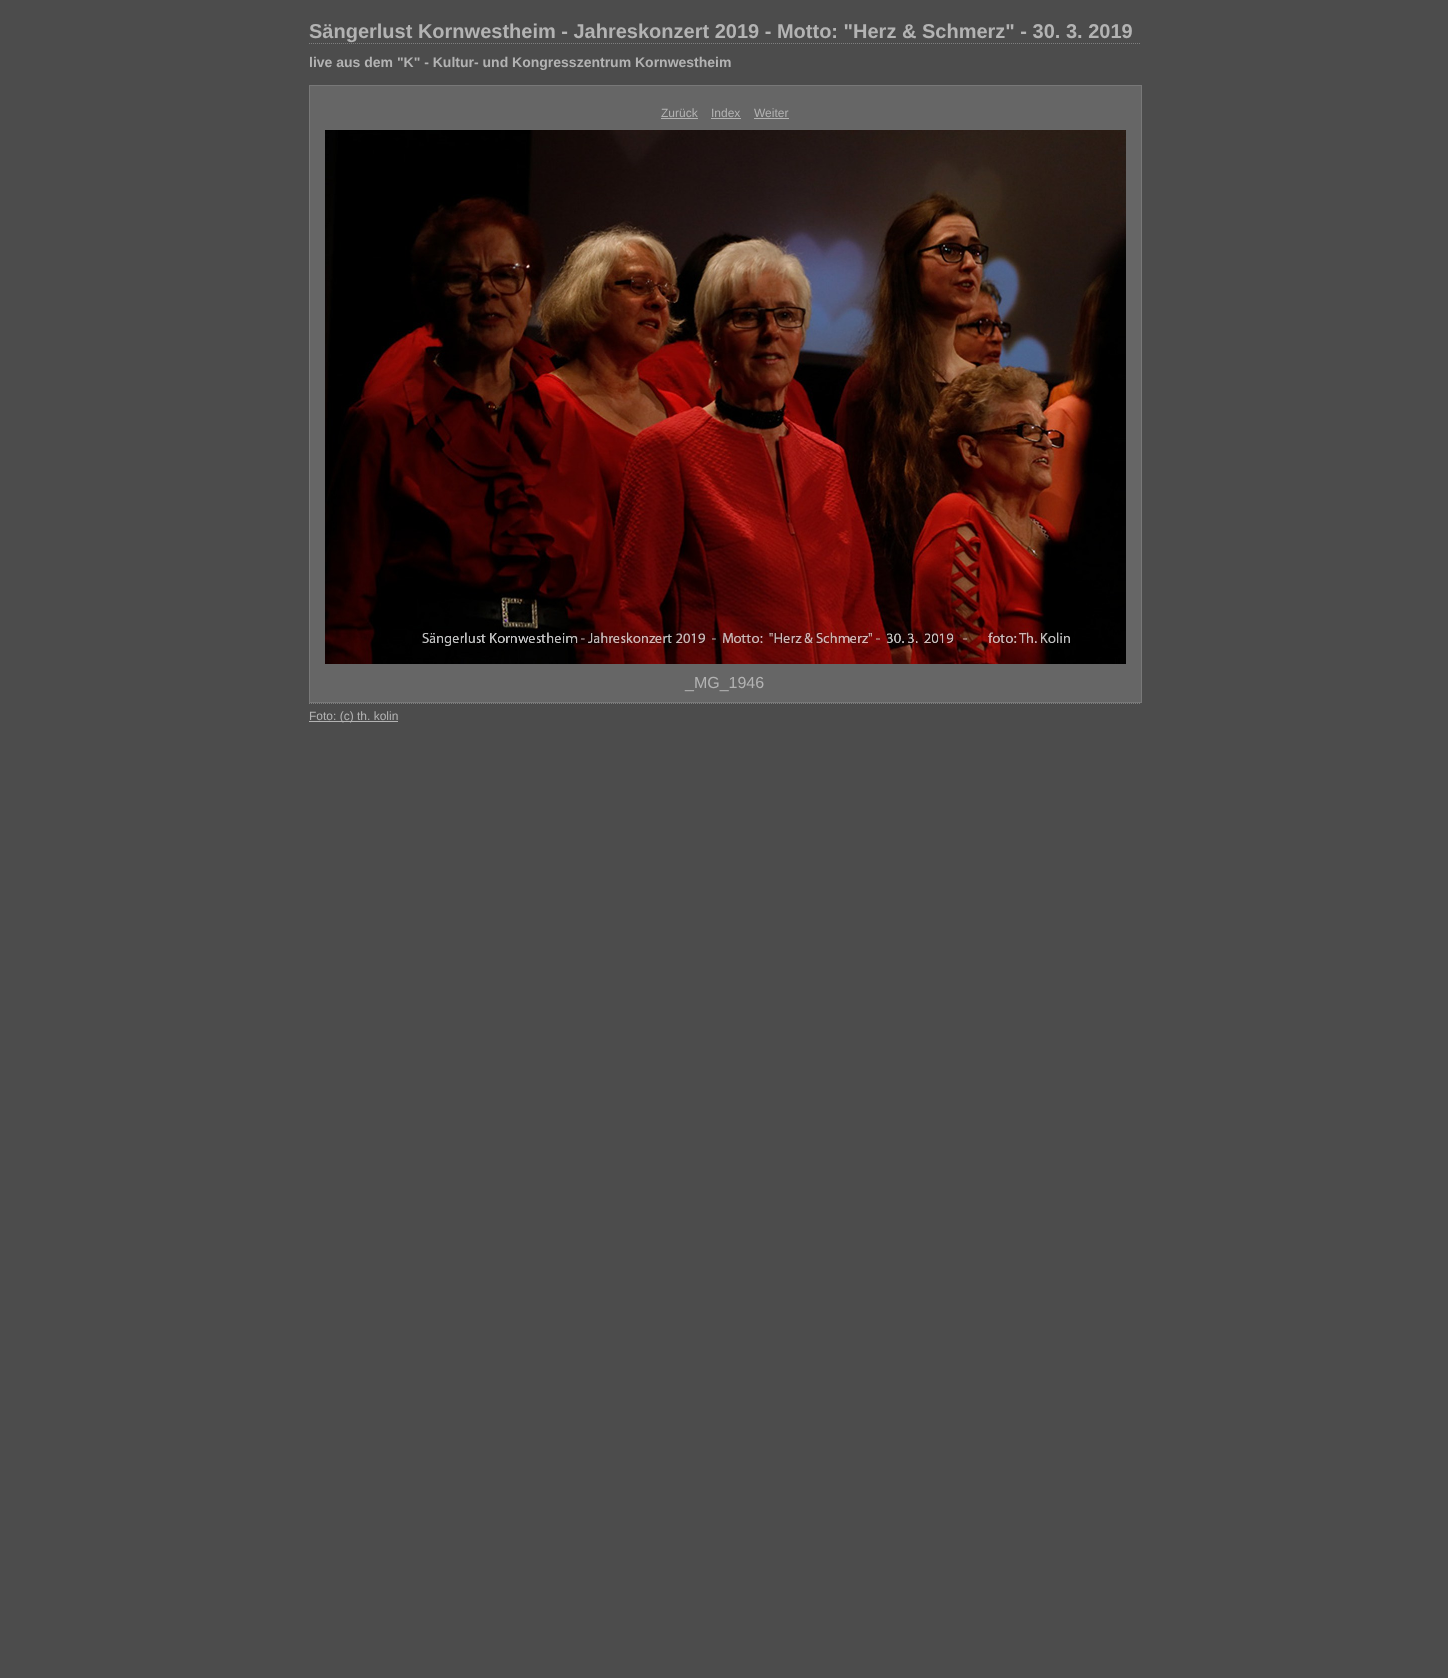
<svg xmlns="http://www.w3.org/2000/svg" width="1448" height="1678">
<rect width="100%" height="100%" fill="#4c4c4c"/>
<path d="M309 43.5h831" fill="none" stroke="#7f7f7f" stroke-dasharray="1 1"/>
<text x="309" y="38" style="font-family:Liberation Sans;font-size:20px;font-weight:bold;fill:#b3b3b3">Sängerlust Kornwestheim - Jahreskonzert 2019 - Motto: "Herz &amp; Schmerz" - 30. 3. 2019</text>
<text x="309" y="67" style="font-family:Liberation Sans;font-size:14px;font-weight:bold;fill:#b3b3b3">live aus dem "K" - Kultur- und Kongresszentrum Kornwestheim</text>
<rect x="309.5" y="85.5" width="832" height="617" fill="#666" stroke="#787878"/>
<text x="661" y="117" style="font-family:Liberation Sans;font-size:12px;fill:#b3b3b3">Zurück</text>
<rect x="661" y="118" width="37" height="1" fill="#b3b3b3"/>
<text x="711" y="117" style="font-family:Liberation Sans;font-size:12px;fill:#b3b3b3">Index</text>
<rect x="711" y="118" width="30" height="1" fill="#b3b3b3"/>
<text x="754" y="117" style="font-family:Liberation Sans;font-size:12px;fill:#b3b3b3">Weiter</text>
<rect x="754" y="118" width="35" height="1" fill="#b3b3b3"/>
<image x="325" y="130" width="801" height="534" href="media/1.png"/>
<text x="685" y="688" style="font-family:Liberation Sans;font-size:16px;fill:#b3b3b3">_MG_1946</text>
<path d="M309 703.5h831" fill="none" stroke="#7f7f7f" stroke-dasharray="1 1"/>
<rect x="309" y="721" width="89" height="1" fill="#b3b3b3"/>
<text x="309" y="720" style="font-family:Liberation Sans;font-size:12px;fill:#b3b3b3">Foto: (c) th. kolin</text>
</svg>
